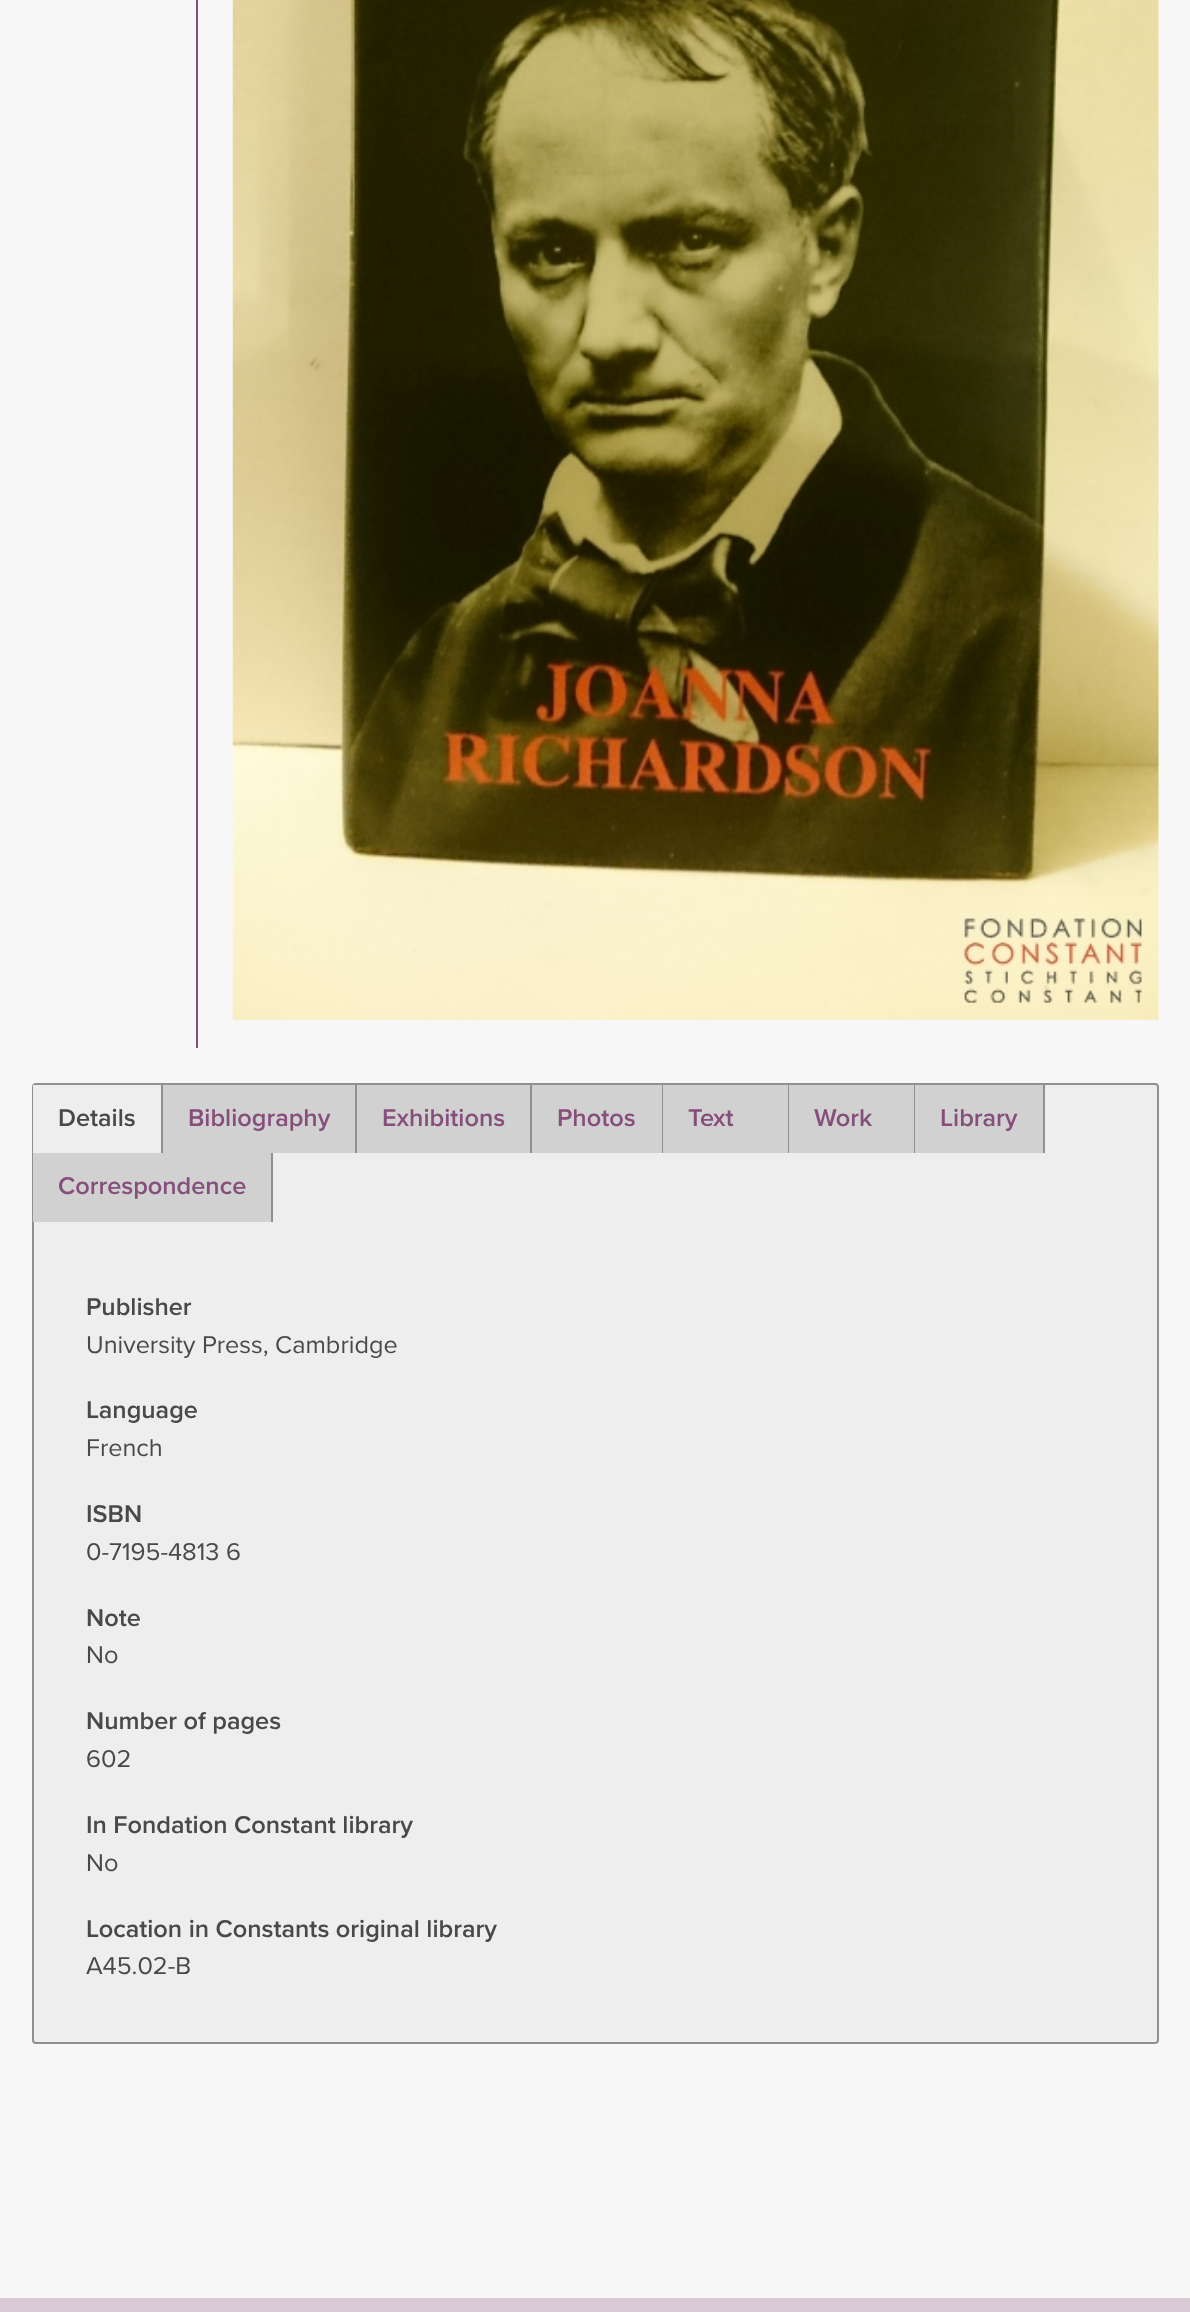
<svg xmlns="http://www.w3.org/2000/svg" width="1190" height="2312">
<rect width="100%" height="100%" fill="#f7f7f7"/>
<rect x="196" width="2" height="1048" fill="#864e7b"/>
<image x="232" y="0" width="927" height="1020" href="media/1.png"/>
<rect x="33" y="1084" width="1125" height="959" rx="3" fill="#eee" stroke="#8f908f" stroke-width="2"/>
<rect x="33" y="1085" width="3" height="68" fill="#eee"/>
<rect x="161" y="1085" width="2" height="70" fill="#8f908f"/>
<text x="58" y="1126" style="font-family:Proxima Nova;font-size:25.25px;font-weight:600;fill:#494949">Details</text>
<rect x="163" y="1085" width="192" height="68" fill="#d1d1d1"/>
<rect x="355" y="1085" width="2" height="68" fill="#8f908f"/>
<text x="188" y="1126" style="font-family:Proxima Nova;font-size:25.25px;font-weight:600;fill:#864e7b">Bibliography</text>
<rect x="357" y="1085" width="173" height="68" fill="#d1d1d1"/>
<rect x="530" y="1085" width="2" height="68" fill="#8f908f"/>
<text x="382" y="1126" style="font-family:Proxima Nova;font-size:25.25px;font-weight:600;fill:#864e7b">Exhibitions</text>
<rect x="532" y="1085" width="130" height="68" fill="#d1d1d1"/>
<rect x="662" y="1085" width="1" height="68" fill="#8f908f"/>
<text x="557" y="1126" style="font-family:Proxima Nova;font-size:25.25px;font-weight:600;fill:#864e7b">Photos</text>
<rect x="663" y="1085" width="125" height="68" fill="#d1d1d1"/>
<rect x="788" y="1085" width="1" height="68" fill="#8f908f"/>
<text x="688" y="1126" style="font-family:Proxima Nova;font-size:25.25px;font-weight:600;fill:#864e7b">Text</text>
<rect x="789" y="1085" width="125" height="68" fill="#d1d1d1"/>
<rect x="914" y="1085" width="1" height="68" fill="#8f908f"/>
<text x="814" y="1126" style="font-family:Proxima Nova;font-size:25.25px;font-weight:600;fill:#864e7b">Work</text>
<rect x="915" y="1085" width="128" height="68" fill="#d1d1d1"/>
<rect x="1043" y="1085" width="2" height="68" fill="#8f908f"/>
<text x="940" y="1126" style="font-family:Proxima Nova;font-size:25.25px;font-weight:600;fill:#864e7b">Library</text>
<rect x="33" y="1153" width="238" height="69" fill="#d1d1d1"/>
<rect x="271" y="1153" width="2" height="69" fill="#8f908f"/>
<text x="58" y="1194" style="font-family:Proxima Nova;font-size:25.25px;font-weight:600;fill:#864e7b">Correspondence</text>
<text x="86" y="1315" style="font-family:Proxima Nova;font-size:25.25px;font-weight:600;fill:#494949">Publisher</text>
<text x="86" y="1353" style="font-family:Proxima Nova;font-size:25.25px;fill:#494949">University Press, Cambridge</text>
<text x="86" y="1418" style="font-family:Proxima Nova;font-size:25.25px;font-weight:600;fill:#494949">Language</text>
<text x="86" y="1456" style="font-family:Proxima Nova;font-size:25.25px;fill:#494949">French</text>
<text x="86" y="1522" style="font-family:Proxima Nova;font-size:25.25px;font-weight:600;fill:#494949">ISBN</text>
<text x="86" y="1560" style="font-family:Proxima Nova;font-size:25.25px;fill:#494949">0-7195-4813 6</text>
<text x="86" y="1626" style="font-family:Proxima Nova;font-size:25.25px;font-weight:600;fill:#494949">Note</text>
<text x="86" y="1663" style="font-family:Proxima Nova;font-size:25.25px;fill:#494949">No</text>
<text x="86" y="1729" style="font-family:Proxima Nova;font-size:25.25px;font-weight:600;fill:#494949">Number of pages</text>
<text x="86" y="1767" style="font-family:Proxima Nova;font-size:25.25px;fill:#494949">602</text>
<text x="86" y="1833" style="font-family:Proxima Nova;font-size:25.25px;font-weight:600;fill:#494949">In Fondation Constant library</text>
<text x="86" y="1871" style="font-family:Proxima Nova;font-size:25.25px;fill:#494949">No</text>
<text x="86" y="1937" style="font-family:Proxima Nova;font-size:25.25px;font-weight:600;fill:#494949">Location in Constants original library</text>
<text x="86" y="1974" style="font-family:Proxima Nova;font-size:25.25px;fill:#494949">A45.02-B</text>
<rect y="2298" width="1190" height="14" fill="#dacad6"/>
</svg>
